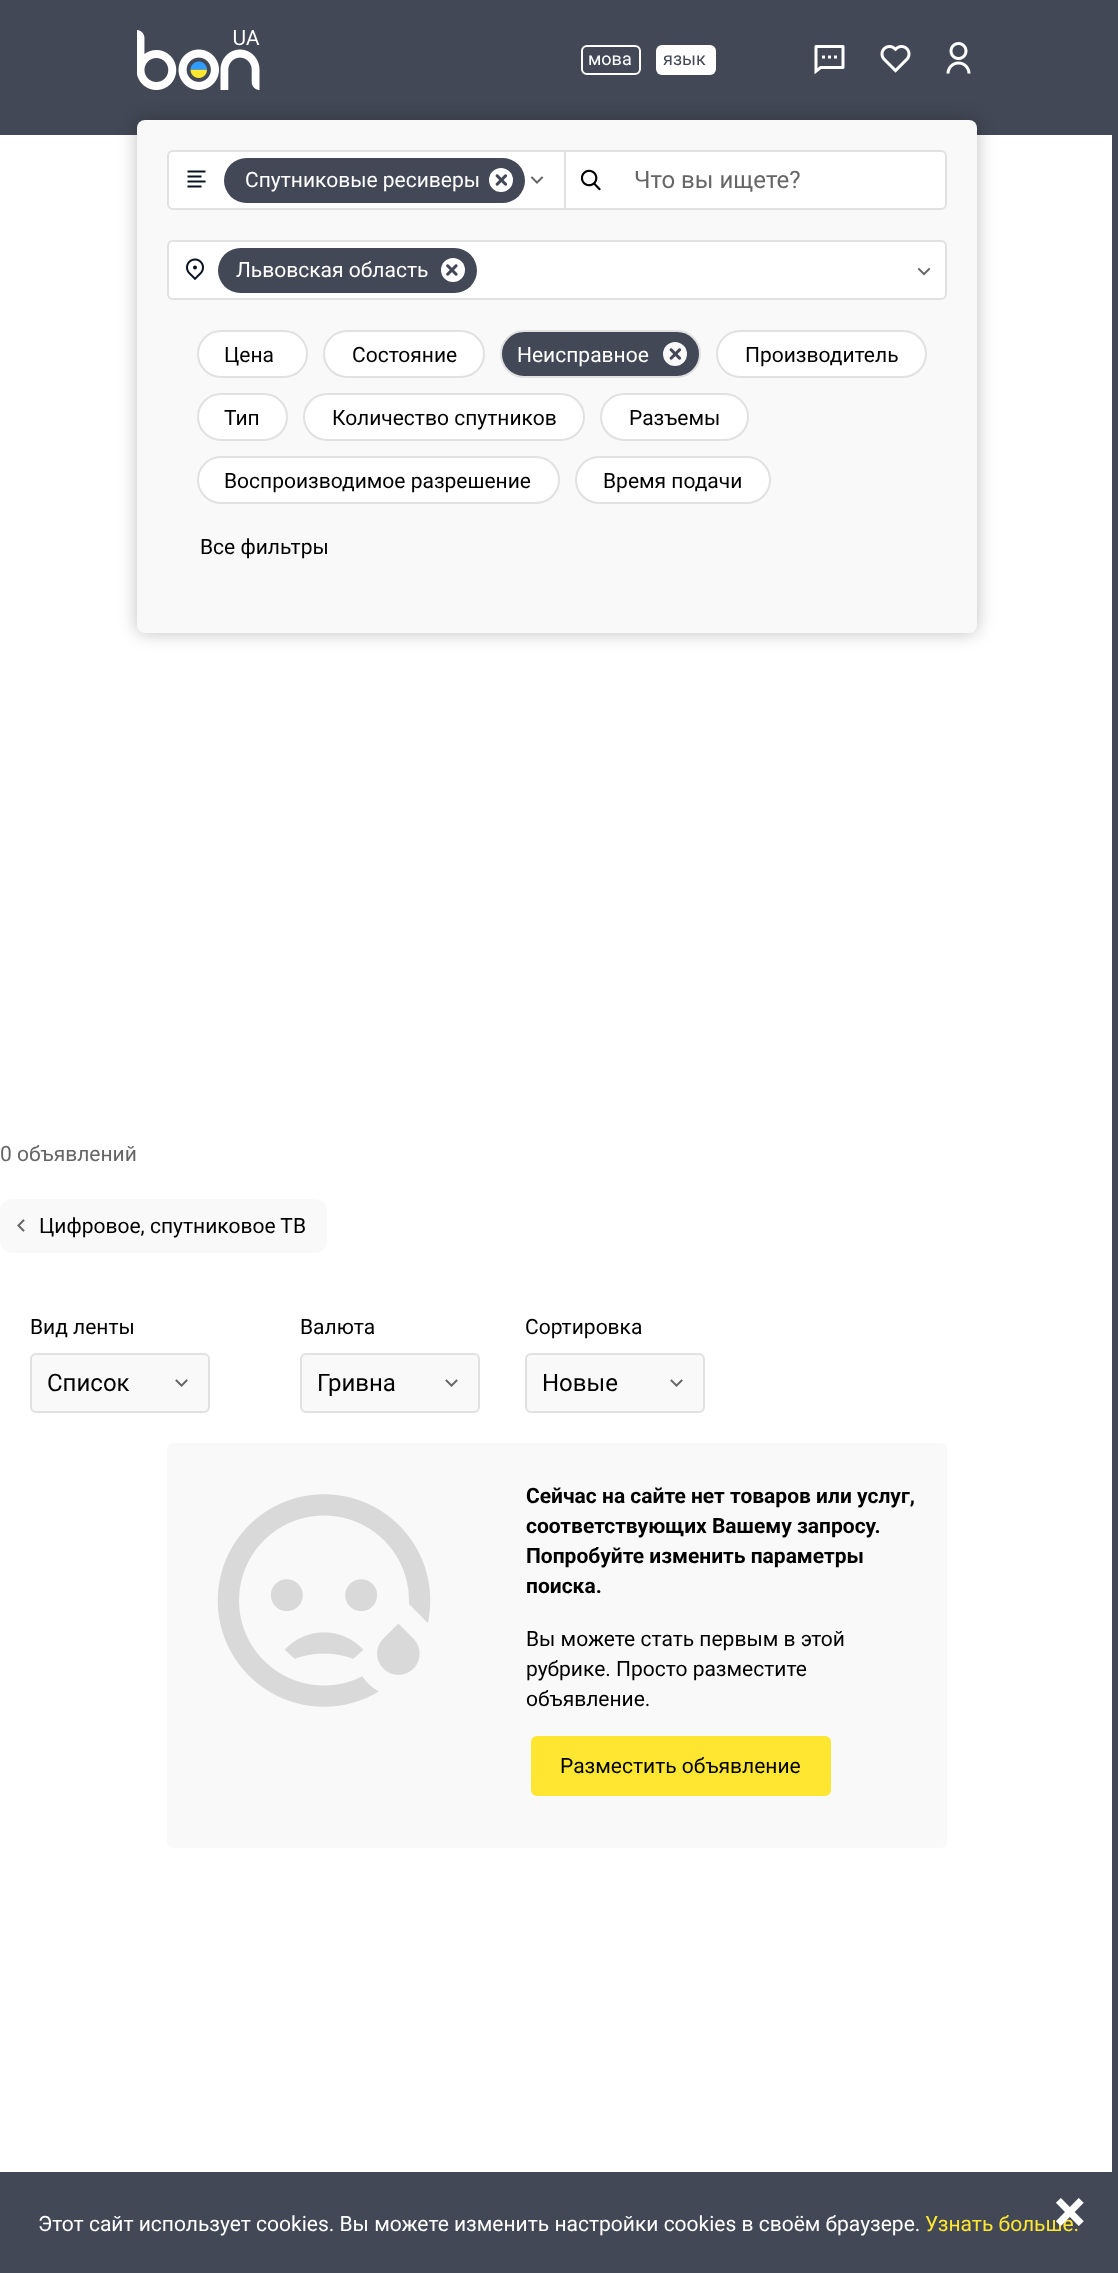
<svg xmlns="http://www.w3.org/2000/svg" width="1118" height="2273">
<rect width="100%" height="100%" fill="#434856"/>
<rect y="135" width="1112" height="2037" fill="#fff"/>
<image x="137" y="30" width="123" height="60" href="media/1.png"/>
<rect x="582" y="46" width="58" height="28" rx="5" fill="none" stroke="#fff" stroke-width="2"/>
<text x="588" y="65" style="font-family:Roboto;font-size:18px;fill:#fff">мова</text>
<rect x="656" y="45" width="60" height="30" rx="6" fill="#fff"/>
<text x="663" y="65" style="font-family:Roboto;font-size:18px;fill:#434856">язык</text>
<image x="814" y="45" width="31" height="30" href="media/2.png"/>
<image x="880" y="45" width="31" height="28" href="media/3.png"/>
<image x="946" y="42" width="25" height="32" href="media/4.png"/>
<rect x="137" y="120" width="840" height="513" rx="8" fill="#00000040" filter="blur(9px)"/>
<rect x="137" y="120" width="840" height="513" rx="8" fill="#f9f9f9"/>
<rect x="168" y="151" width="778" height="58" rx="5" fill="#fff" stroke="#e1e1e1" stroke-width="2"/>
<image x="187" y="170" width="19" height="18" href="media/5.png"/>
<rect x="224" y="158" width="301" height="45" rx="22.5" fill="#434856"/>
<text x="245" y="187" style="font-family:Roboto;font-size:21px;fill:#fff">Спутниковые ресиверы</text>
<circle cx="501" cy="180" r="12" fill="#fff"/>
<image x="495" y="174" width="13" height="12" href="media/6.png"/>
<image x="530" y="176" width="14" height="8" href="media/7.png"/>
<rect x="564" y="152" width="2" height="58" fill="#e1e1e1"/>
<image x="581" y="169" width="20" height="22" href="media/8.png"/>
<text x="634" y="188" style="font-family:Roboto;font-size:24px;fill:#666">Что вы ищете?</text>
<rect x="168" y="241" width="778" height="58" rx="5" fill="#fff" stroke="#e1e1e1" stroke-width="2"/>
<image x="186" y="258" width="18" height="23" href="media/9.png"/>
<rect x="218" y="248" width="259" height="45" rx="22.5" fill="#434856"/>
<text x="236" y="277" style="font-family:Roboto;font-size:21px;fill:#fff">Львовская область</text>
<circle cx="453" cy="270" r="12" fill="#fff"/>
<image x="446" y="264" width="12" height="12" href="media/10.png"/>
<image x="917" y="267" width="14" height="9" href="media/11.png"/>
<rect x="198" y="331" width="109" height="46" rx="23" fill="#fff" stroke="#e1e1e1" stroke-width="2"/>
<text x="224" y="362" style="font-family:Roboto;font-size:21px;fill:#000">Цена</text>
<rect x="324" y="331" width="160" height="46" rx="23" fill="#fff" stroke="#e1e1e1" stroke-width="2"/>
<text x="352" y="362" style="font-family:Roboto;font-size:21px;fill:#000">Состояние</text>
<rect x="501" y="331" width="199" height="46" rx="23" fill="#434856" stroke="#e1e1e1" stroke-width="2"/>
<text x="517" y="362" style="font-family:Roboto;font-size:21px;fill:#fff">Неисправное</text>
<circle cx="675" cy="354" r="12" fill="#f9f9f9"/>
<image x="669" y="348" width="13" height="12" href="media/12.png"/>
<rect x="717" y="331" width="209" height="46" rx="23" fill="#fff" stroke="#e1e1e1" stroke-width="2"/>
<text x="745" y="362" style="font-family:Roboto;font-size:21px;fill:#000">Производитель</text>
<rect x="198" y="394" width="89" height="46" rx="23" fill="#fff" stroke="#e1e1e1" stroke-width="2"/>
<text x="224" y="425" style="font-family:Roboto;font-size:21px;fill:#000">Тип</text>
<rect x="304" y="394" width="280" height="46" rx="23" fill="#fff" stroke="#e1e1e1" stroke-width="2"/>
<text x="332" y="425" style="font-family:Roboto;font-size:21px;fill:#000">Количество спутников</text>
<rect x="601" y="394" width="147" height="46" rx="23" fill="#fff" stroke="#e1e1e1" stroke-width="2"/>
<text x="629" y="425" style="font-family:Roboto;font-size:21px;fill:#000">Разъемы</text>
<rect x="198" y="457" width="361" height="46" rx="23" fill="#fff" stroke="#e1e1e1" stroke-width="2"/>
<text x="224" y="488" style="font-family:Roboto;font-size:21px;fill:#000">Воспроизводимое разрешение</text>
<rect x="576" y="457" width="194" height="46" rx="23" fill="#fff" stroke="#e1e1e1" stroke-width="2"/>
<text x="603" y="488" style="font-family:Roboto;font-size:21px;fill:#000">Время подачи</text>
<text x="200" y="554" style="font-family:Roboto;font-size:21px;fill:#000">Все фильтры</text>
<text x="0" y="1161" style="font-family:Roboto;font-size:21px;fill:#666">0 объявлений</text>
<rect y="1199" width="327" height="54" rx="12" fill="#f9f9f9"/>
<image x="17" y="1219" width="8" height="13" href="media/13.png"/>
<text x="39" y="1233" style="font-family:Roboto;font-size:21px;fill:#000">Цифровое, спутниковое ТВ</text>
<text x="30" y="1334" style="font-family:Roboto;font-size:21px;fill:#000">Вид ленты</text>
<rect x="31" y="1354" width="178" height="58" rx="5" fill="#f9f9f9" stroke="#e1e1e1" stroke-width="2"/>
<text x="47" y="1391" style="font-family:Roboto;font-size:24px;fill:#000">Список</text>
<image x="175" y="1379" width="13" height="8" href="media/14.png"/>
<text x="300" y="1334" style="font-family:Roboto;font-size:21px;fill:#000">Валюта</text>
<rect x="301" y="1354" width="178" height="58" rx="5" fill="#f9f9f9" stroke="#e1e1e1" stroke-width="2"/>
<text x="317" y="1391" style="font-family:Roboto;font-size:24px;fill:#000">Гривна</text>
<image x="445" y="1379" width="13" height="8" href="media/14.png"/>
<text x="525" y="1334" style="font-family:Roboto;font-size:21px;fill:#000">Сортировка</text>
<rect x="526" y="1354" width="178" height="58" rx="5" fill="#f9f9f9" stroke="#e1e1e1" stroke-width="2"/>
<text x="542" y="1391" style="font-family:Roboto;font-size:24px;fill:#000">Новые</text>
<image x="670" y="1379" width="13" height="8" href="media/14.png"/>
<rect x="167" y="1443" width="780" height="405" rx="6" fill="#f9f9f9"/>
<image x="217" y="1494" width="214" height="213" href="media/15.png"/>
<text x="526" y="1503" style="font-family:Roboto;font-size:21px;font-weight:bold;fill:#000">Сейчас на сайте нет товаров или услуг,</text>
<text x="526" y="1533" style="font-family:Roboto;font-size:21px;font-weight:bold;fill:#000">соответствующих Вашему запросу.</text>
<text x="526" y="1563" style="font-family:Roboto;font-size:21px;font-weight:bold;fill:#000">Попробуйте изменить параметры</text>
<text x="526" y="1593" style="font-family:Roboto;font-size:21px;font-weight:bold;fill:#000">поиска.</text>
<text x="526" y="1646" style="font-family:Roboto;font-size:21px;fill:#000">Вы можете стать первым в этой</text>
<text x="526" y="1676" style="font-family:Roboto;font-size:21px;fill:#000">рубрике. Просто разместите</text>
<text x="526" y="1706" style="font-family:Roboto;font-size:21px;fill:#000">объявление.</text>
<rect x="531" y="1736" width="300" height="60" rx="6" fill="#ffe630"/>
<text x="560" y="1773" style="font-family:Roboto;font-size:21px;fill:#000">Разместить объявление</text>
<text x="925" y="2231" style="font-family:Roboto;font-size:21px;fill:#ffe630">Узнать больше.</text>
<text x="1054" y="2232" style="font-family:Roboto;font-size:60px;font-weight:bold;fill:#fff">×</text>
<text x="38" y="2231" style="font-family:Roboto;font-size:21px;fill:#fff">Этот сайт использует cookies. Вы можете изменить настройки cookies в своём браузере.</text>
</svg>
